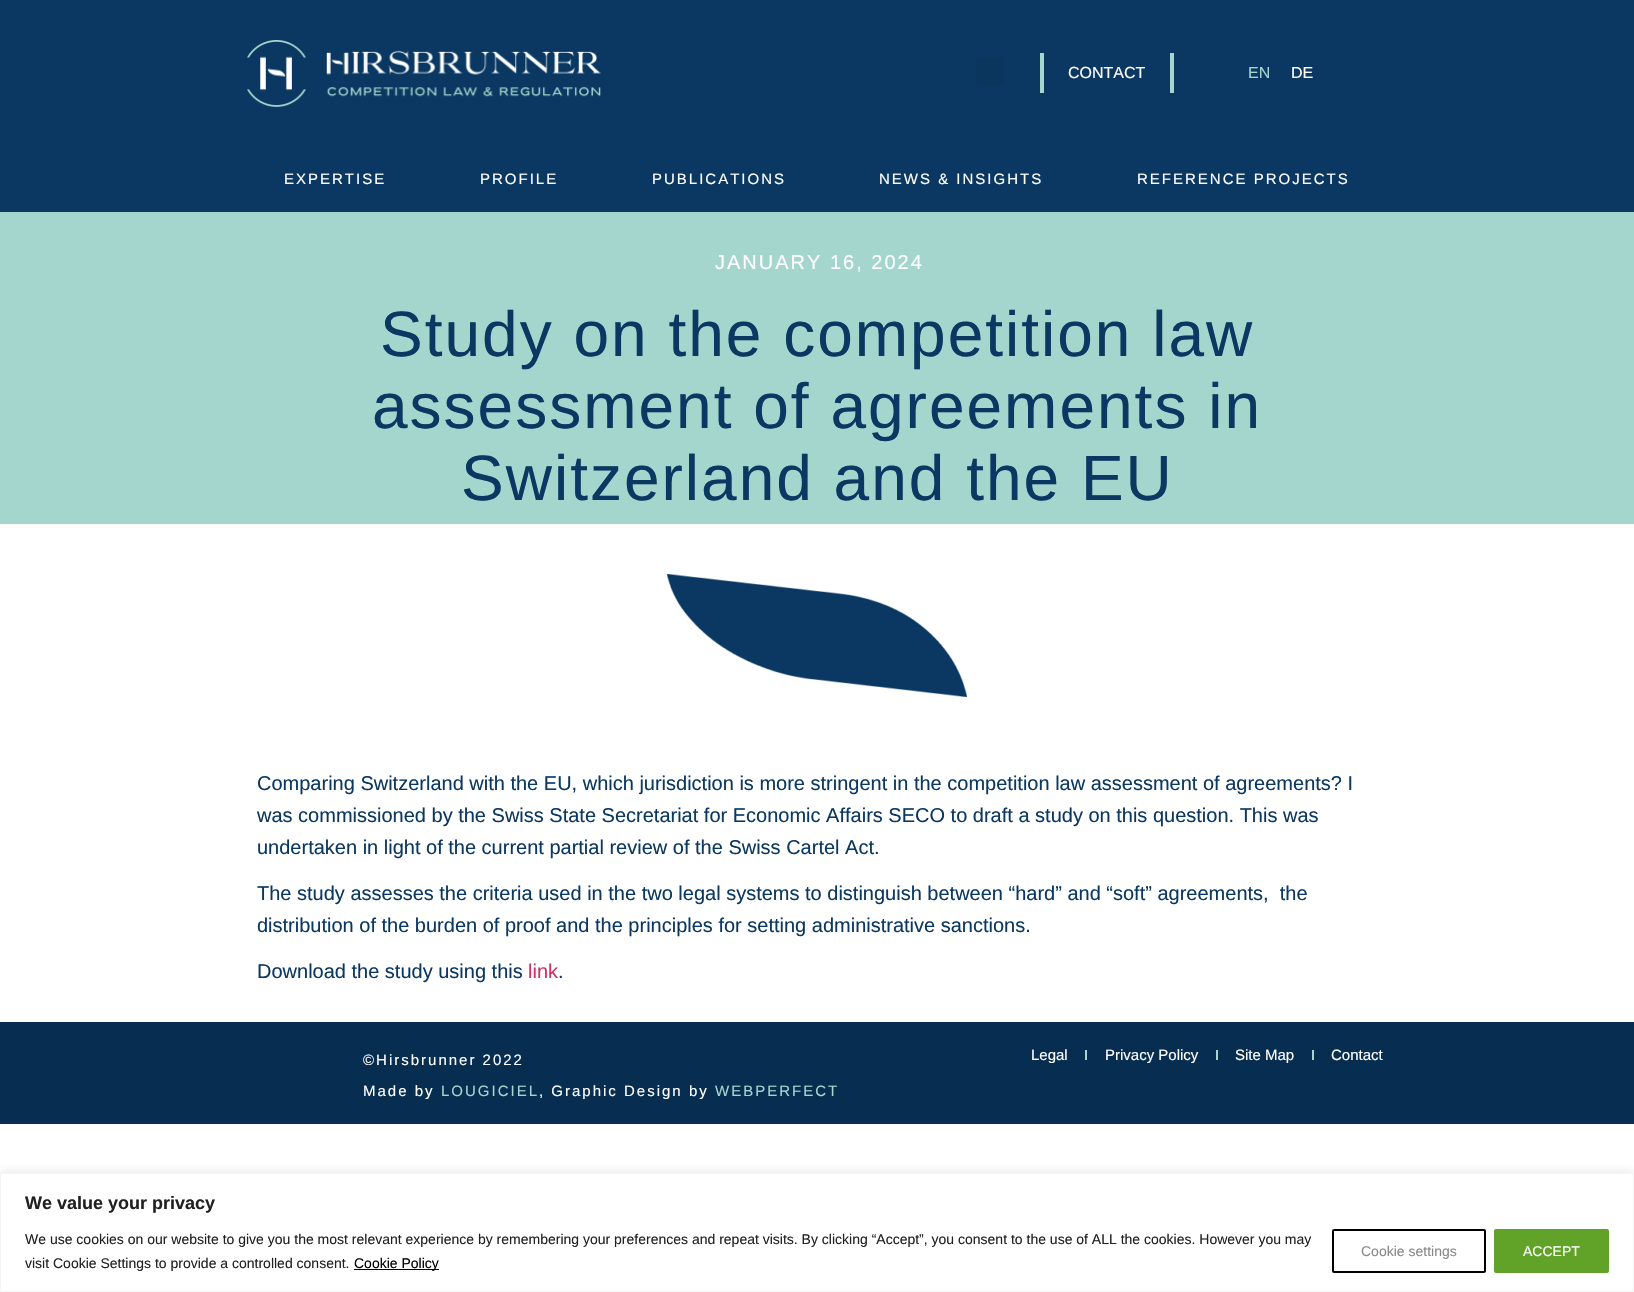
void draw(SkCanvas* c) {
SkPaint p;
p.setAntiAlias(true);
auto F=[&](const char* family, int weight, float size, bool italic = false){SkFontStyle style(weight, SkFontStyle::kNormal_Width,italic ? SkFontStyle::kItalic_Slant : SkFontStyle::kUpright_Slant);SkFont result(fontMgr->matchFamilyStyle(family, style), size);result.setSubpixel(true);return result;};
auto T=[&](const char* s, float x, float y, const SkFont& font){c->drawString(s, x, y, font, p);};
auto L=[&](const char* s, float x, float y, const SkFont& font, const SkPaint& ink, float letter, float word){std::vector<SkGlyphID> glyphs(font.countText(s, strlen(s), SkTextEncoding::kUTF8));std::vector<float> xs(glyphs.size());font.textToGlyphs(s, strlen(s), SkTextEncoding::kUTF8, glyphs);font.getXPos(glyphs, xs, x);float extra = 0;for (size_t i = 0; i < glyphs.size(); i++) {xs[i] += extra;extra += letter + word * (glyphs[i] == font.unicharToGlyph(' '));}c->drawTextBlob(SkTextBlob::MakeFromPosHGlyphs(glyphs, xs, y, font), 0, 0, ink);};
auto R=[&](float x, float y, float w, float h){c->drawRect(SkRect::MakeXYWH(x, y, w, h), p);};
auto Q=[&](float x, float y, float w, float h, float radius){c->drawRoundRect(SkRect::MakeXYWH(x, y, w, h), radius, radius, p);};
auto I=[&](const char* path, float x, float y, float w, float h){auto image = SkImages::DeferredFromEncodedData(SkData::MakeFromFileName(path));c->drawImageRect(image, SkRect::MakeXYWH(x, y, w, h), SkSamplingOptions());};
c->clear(0xffffffff);
p.setColor(0xff0a3862);
R(0,0,1634,212);
I("1.png",247,40,354,67);
p.setColor(0xff0a355d);
Q(976,57,28,28,3);
p.setColor(0xffa4d6cd);
R(1170,53,4,40);
R(1040,53,4,40);
auto f1 = F("Liberation Sans",400,16);
p.setColor(0xffffffff);
T("CONTACT",1068,78,f1);
p.setColor(0xffa4d6cd);
T("EN",1248,78,f1);
p.setColor(0xffffffff);
T("DE",1291,78,f1);
auto f2 = F("Liberation Sans",400,15);
L("EXPERTISE",284,184,f2,p,2,0);
L("PROFILE",480,184,f2,p,2,0);
L("PUBLICATIONS",652,184,f2,p,2,0);
L("NEWS & INSIGHTS",879,184,f2,p,2,0);
L("REFERENCE PROJECTS",1137,184,f2,p,2,0);
p.setColor(0xffa4d6cd);
R(0,212,1634,312);
auto f3 = F("Liberation Sans",400,20);
p.setColor(0xffffffff);
L("JANUARY 16, 2024",715,269,f3,p,2,0);
auto f4 = F("Liberation Sans",400,64);
p.setColor(0xff0a3862);
L("Study on the competition law",380,356,f4,p,2,0);
L("assessment of agreements in",372,428,f4,p,2,0);
L("Switzerland and the EU",461,500,f4,p,2,0);
I("2.png",667,574,300,123);
T("Comparing Switzerland with the EU, which jurisdiction is more stringent in the competition law assessment of agreements? I",257,790,f3);
T("was commissioned by the Swiss State Secretariat for Economic Affairs SECO to draft a study on this question. This was",257,822,f3);
T("undertaken in light of the current partial review of the Swiss Cartel Act.",257,854,f3);
T("The study assesses the criteria used in the two legal systems to distinguish between “hard” and “soft” agreements,  the",257,900,f3);
T("distribution of the burden of proof and the principles for setting administrative sanctions.",257,932,f3);
T("Download the study using this",257,978,f3);
p.setColor(0xffcc3366);
T("link",528,978,f3);
p.setColor(0xff0a3862);
T(".",558,978,f3);
p.setColor(0xff072d50);
R(0,1022,1634,102);
p.setColor(0xffffffff);
L("©Hirsbrunner 2022",363,1065,f2,p,2,0);
L("Made by",363,1096,f2,p,2,0);
p.setColor(0xffa4d6cd);
L("LOUGICIEL",441,1096,f2,p,2,0);
p.setColor(0xffffffff);
L(", Graphic Design by",539,1096,f2,p,2,0);
p.setColor(0xffa4d6cd);
L("WEBPERFECT",715,1096,f2,p,2,0);
p.setColor(0xffffffff);
T("Legal",1031,1060,f2);
p.setColor(0xffa4d6cd);
R(1085,1050,2,10);
p.setColor(0xffffffff);
T("Privacy Policy",1105,1060,f2);
p.setColor(0xffa4d6cd);
R(1216,1050,2,10);
p.setColor(0xffffffff);
T("Site Map",1235,1060,f2);
p.setColor(0xffa4d6cd);
R(1312,1050,2,10);
p.setColor(0xffffffff);
T("Contact",1331,1060,f2);
c->save();
c->clipRect(SkRect::MakeXYWH(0,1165,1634,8));
p.setColor(0x4dacabab);
p.setMaskFilter(SkMaskFilter::MakeBlur(kNormal_SkBlurStyle, 5));
c->drawRect(SkRect::MakeXYWH(0,1172,1634,119),p);
p.setMaskFilter(nullptr);
c->restore();
p.setStroke(true);
p.setStrokeWidth(1);
p.setColor(0xfff4f4f4);
c->drawRect(SkRect::MakeXYWH(.5,1173.5,1633,118),p);
auto f5 = F("Liberation Sans",700,18);
p.setStroke(false);
p.setColor(0xff212121);
T("We value your privacy",25,1209,f5);
auto f6 = F("Liberation Sans",400,14);
T("We use cookies on our website to give you the most relevant experience by remembering your preferences and repeat visits. By clicking “Accept”, you consent to the use of ALL the cookies. However you may",25,1244,f6);
T("visit Cookie Settings to provide a controlled consent.",25,1268,f6);
p.setColor(0xff000000);
R(354,1269,85,1);
T("Cookie Policy",354,1268,f6);
p.setStroke(true);
p.setStrokeWidth(2);
c->drawRoundRect(SkRect::MakeXYWH(1333,1230,152,42),1,1,p);
p.setStroke(false);
p.setColor(0xff898888);
T("Cookie settings",1361,1256,f6);
p.setColor(0xff61a229);
c->drawRoundRect(SkRect::MakeXYWH(1495,1230,113,42),1,1,p);
p.setStroke(true);
c->drawRoundRect(SkRect::MakeXYWH(1495,1230,113,42),1,1,p);
p.setStroke(false);
p.setColor(0xffffffff);
T("ACCEPT",1523,1256,f6);
}
